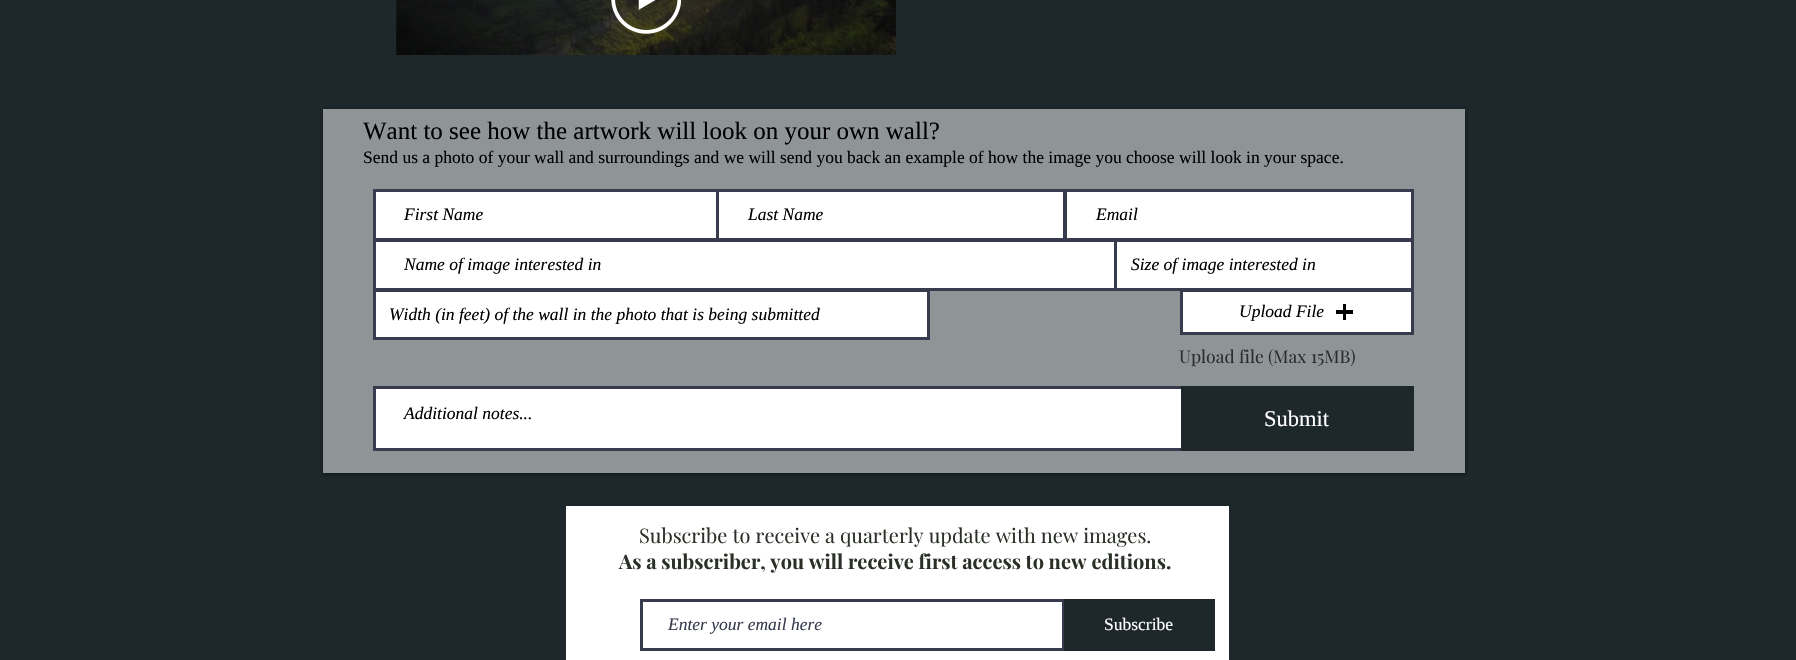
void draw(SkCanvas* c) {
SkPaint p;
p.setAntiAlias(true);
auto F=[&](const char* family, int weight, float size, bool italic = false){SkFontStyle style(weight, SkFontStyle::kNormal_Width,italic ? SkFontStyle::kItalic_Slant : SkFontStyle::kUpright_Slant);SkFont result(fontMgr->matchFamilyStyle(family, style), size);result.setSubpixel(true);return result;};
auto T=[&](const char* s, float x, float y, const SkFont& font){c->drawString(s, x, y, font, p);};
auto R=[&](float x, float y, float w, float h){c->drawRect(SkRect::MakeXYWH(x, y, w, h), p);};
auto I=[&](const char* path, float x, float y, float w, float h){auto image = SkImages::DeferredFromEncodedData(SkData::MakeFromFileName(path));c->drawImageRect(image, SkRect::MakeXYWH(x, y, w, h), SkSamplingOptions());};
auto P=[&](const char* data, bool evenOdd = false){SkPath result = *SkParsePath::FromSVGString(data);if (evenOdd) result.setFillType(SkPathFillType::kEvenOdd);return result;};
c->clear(0xff1e282c);
I("1.png",396,0,500,55);
I("2.png",396,0,1,55);
I("3.png",611,0,70,34);
c->save();
c->clipPath(P("M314 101h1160v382h-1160zm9 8h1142v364h-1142z",true),true);
p.setColor(0x99000000);
p.setMaskFilter(SkMaskFilter::MakeBlur(kNormal_SkBlurStyle, 2.5));
c->drawRect(SkRect::MakeXYWH(323,110,1142,364),p);
p.setMaskFilter(nullptr);
c->restore();
p.setColor(0x80ffffff);
R(323,109,1142,364);
auto f1 = F("Liberation Serif",400,25);
p.setColor(0xff000000);
T("Want to see how the artwork will look on your own wall?",363,139,f1);
auto f2 = F("Liberation Serif",400,17.5);
T("Send us a photo of your wall and surroundings and we will send you back an example of how the image you choose will look in your space.",363,163,f2);
p.setColor(0xffffffff);
R(376,192,340,46);
p.setStroke(true);
p.setStrokeWidth(3);
p.setColor(0xff373b4d);
c->drawRect(SkRect::MakeXYWH(374.5,190.5,347,49),p);
auto f3 = F("Liberation Serif",400,17.5,true);
p.setStroke(false);
p.setColor(0xff000000);
T("First Name",404,220,f3);
p.setColor(0xffffffff);
c->drawRect(SkRect::MakeXYWH(717.5,190.5,347,49),p);
p.setStroke(true);
p.setColor(0xff373b4d);
c->drawRect(SkRect::MakeXYWH(717.5,190.5,347,49),p);
p.setStroke(false);
p.setColor(0xff000000);
T("Last Name",748,220,f3);
p.setColor(0xffffffff);
c->drawRect(SkRect::MakeXYWH(1065.5,190.5,347,49),p);
p.setStroke(true);
p.setColor(0xff373b4d);
c->drawRect(SkRect::MakeXYWH(1065.5,190.5,347,49),p);
p.setStroke(false);
p.setColor(0xff000000);
T("Email",1096,220,f3);
p.setColor(0xffffffff);
R(376,242,738,46);
p.setStroke(true);
p.setColor(0xff373b4d);
c->drawRect(SkRect::MakeXYWH(374.5,240.5,745,49),p);
p.setStroke(false);
p.setColor(0xff000000);
T("Name of image interested in",404,270,f3);
p.setColor(0xffffffff);
c->drawRect(SkRect::MakeXYWH(1115.5,240.5,297,49),p);
p.setStroke(true);
p.setColor(0xff373b4d);
c->drawRect(SkRect::MakeXYWH(1115.5,240.5,297,49),p);
p.setStroke(false);
p.setColor(0xff000000);
T("Size of image interested in",1131,270,f3);
p.setColor(0xffffffff);
c->drawRect(SkRect::MakeXYWH(374.5,290.5,554,48),p);
p.setStroke(true);
p.setColor(0xff373b4d);
c->drawRect(SkRect::MakeXYWH(374.5,290.5,554,48),p);
p.setStroke(false);
p.setColor(0xff000000);
T("Width (in feet) of the wall in the photo that is being submitted",389,320,f3);
p.setColor(0xffffffff);
c->drawRect(SkRect::MakeXYWH(1181.5,290.5,231,43),p);
p.setStroke(true);
p.setColor(0xff373b4d);
c->drawRect(SkRect::MakeXYWH(1181.5,290.5,231,43),p);
p.setStroke(false);
p.setColor(0xff000000);
T("Upload File",1239,317,f3);
R(1343,304,3,16);
R(1336,310,17,4);
auto f4 = F("Playfair Display",400,17.5);
p.setColor(0xff2b2c2d);
T("Upload file (Max 15MB)",1179,363,f4);
p.setColor(0xffffffff);
R(376,389,805,59);
p.setStroke(true);
p.setColor(0xff373b4d);
c->drawRect(SkRect::MakeXYWH(374.5,387.5,809,62),p);
p.setStroke(false);
p.setColor(0xff000000);
T("Additional notes...",404,419,f3);
p.setColor(0xff1e282c);
R(1181,386,233,65);
auto f5 = F("Liberation Serif",400,22.5);
p.setColor(0xffffffff);
T("Submit",1264,426,f5);
R(566,506,663,154);
auto f6 = F("Playfair Display",400,20);
p.setColor(0xff2a3027);
T("Subscribe to receive a quarterly update with new images.",639,543,f6);
auto f7 = F("Playfair Display",700,20);
T("As a subscriber, you will receive first access to new editions.",619,569,f7);
p.setStroke(true);
p.setColor(0xff373b4d);
c->drawRect(SkRect::MakeXYWH(641.5,600.5,422,49),p);
p.setStroke(false);
T("Enter your email here",668,630,f3);
p.setColor(0xff1e282c);
R(1064,599,151,52);
p.setColor(0xffffffff);
T("Subscribe",1104,630,f2);
}
